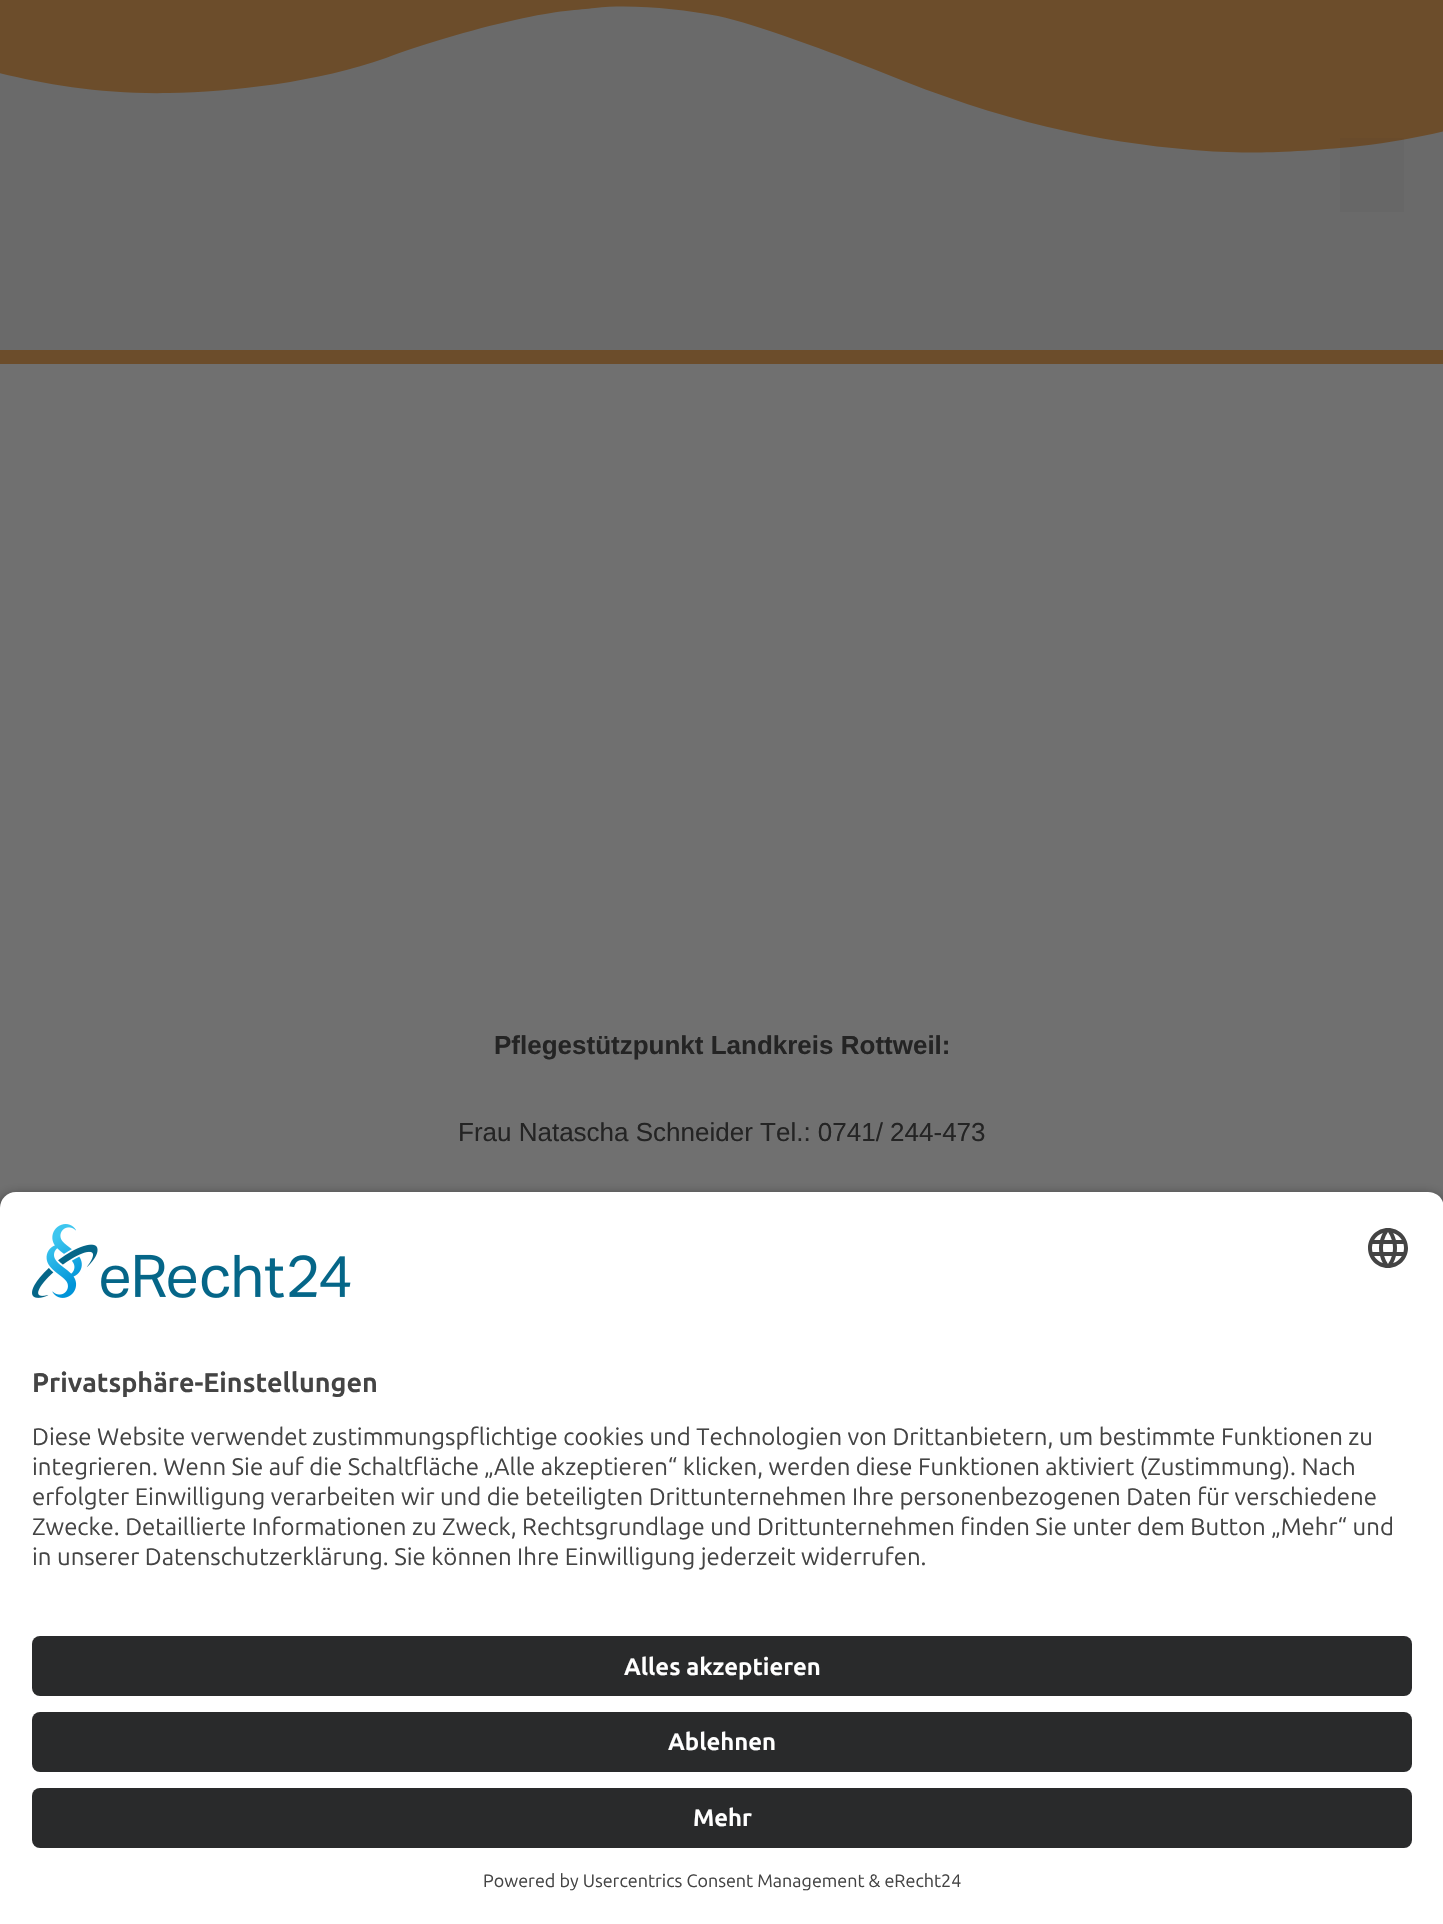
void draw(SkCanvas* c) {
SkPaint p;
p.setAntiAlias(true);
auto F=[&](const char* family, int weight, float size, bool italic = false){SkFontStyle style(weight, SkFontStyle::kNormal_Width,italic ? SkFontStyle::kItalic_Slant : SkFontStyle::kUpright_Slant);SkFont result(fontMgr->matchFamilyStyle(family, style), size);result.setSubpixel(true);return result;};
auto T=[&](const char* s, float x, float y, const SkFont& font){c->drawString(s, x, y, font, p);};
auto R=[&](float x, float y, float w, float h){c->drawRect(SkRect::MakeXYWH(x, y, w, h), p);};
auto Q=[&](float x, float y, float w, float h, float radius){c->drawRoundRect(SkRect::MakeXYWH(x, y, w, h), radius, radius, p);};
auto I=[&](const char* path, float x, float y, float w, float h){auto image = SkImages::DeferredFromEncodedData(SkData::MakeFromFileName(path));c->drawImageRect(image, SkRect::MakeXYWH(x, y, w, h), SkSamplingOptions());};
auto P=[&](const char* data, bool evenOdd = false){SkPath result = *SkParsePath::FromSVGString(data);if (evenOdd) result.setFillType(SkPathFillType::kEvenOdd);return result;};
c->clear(0xff707070);
p.setColor(0xff6a6a6a);
R(0,6,1443,344);
p.setColor(0xff6c4d2b);
R(0,350,1443,14);
c->drawPath(P("M595 8c37-4 84 1 123 8c38 8 115 37 163 56c122 50 216 70 312 78c38 3 78 5 167-4c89-10 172-40 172-40v-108h-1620v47c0 0 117 51 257 48c63-1 150-11 217-35c34-13 84-28 129-38c44-10 64-10 80-12z"),p);
p.setColor(0x0d242424);
R(1340,138,64,74);
auto f1 = F("Liberation Sans",700,26);
p.setColor(0xff242424);
T("Pflegestützpunkt Landkreis Rottweil:",494,1054,f1);
auto f2 = F("Liberation Sans",400,26);
T("Frau Natascha Schneider Tel.: 0741/ 244-473",458,1141,f2);
p.setColor(0xcc000000);
p.setMaskFilter(SkMaskFilter::MakeBlur(kNormal_SkBlurStyle, 7));
c->drawRoundRect(SkRect::MakeXYWH(0,1198,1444,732),16,16,p);
p.setMaskFilter(nullptr);
p.setColor(0xffffffff);
c->drawPath(P("M16 1192h1412c9 0 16 7 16 16v404h-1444v-404c0-9 7-16 16-16z"),p);
I("1.png",32,1224,319,74);
I("2.png",1368,1228,40,40);
auto f3 = F("Ubuntu",700,27);
p.setColor(0xff444444);
T("Privatsphäre-Einstellungen",32,1392,f3);
auto f4 = F("Ubuntu",400,23.95);
T("Diese Website verwendet zustimmungspflichtige cookies und Technologien von Drittanbietern, um bestimmte Funktionen zu",32,1445,f4);
T("integrieren. Wenn Sie auf die Schaltfläche „Alle akzeptieren“ klicken, werden diese Funktionen aktiviert (Zustimmung). Nach",32,1475,f4);
T("erfolgter Einwilligung verarbeiten wir und die beteiligten Drittunternehmen Ihre personenbezogenen Daten für verschiedene",32,1505,f4);
T("Zwecke. Detaillierte Informationen zu Zweck, Rechtsgrundlage und Drittunternehmen finden Sie unter dem Button „Mehr“ und",32,1535,f4);
T("in unserer Datenschutzerklärung. Sie können Ihre Einwilligung jederzeit widerrufen.",32,1565,f4);
p.setColor(0xffffffff);
R(0,1612,1443,312);
p.setColor(0xff292a2b);
Q(32,1636,1380,60,8);
auto f5 = F("Ubuntu",700,23.95);
p.setColor(0xffffffff);
T("Alles akzeptieren",624,1675,f5);
p.setColor(0xff292a2b);
Q(32,1712,1380,60,8);
p.setColor(0xffffffff);
T("Ablehnen",668,1750,f5);
p.setColor(0xff292a2b);
Q(32,1788,1380,60,8);
p.setColor(0xffffffff);
T("Mehr",693,1826,f5);
auto f6 = F("Ubuntu",400,17.95);
p.setColor(0xff444444);
T("Powered by Usercentrics Consent Management & eRecht24",483,1887,f6);
}
